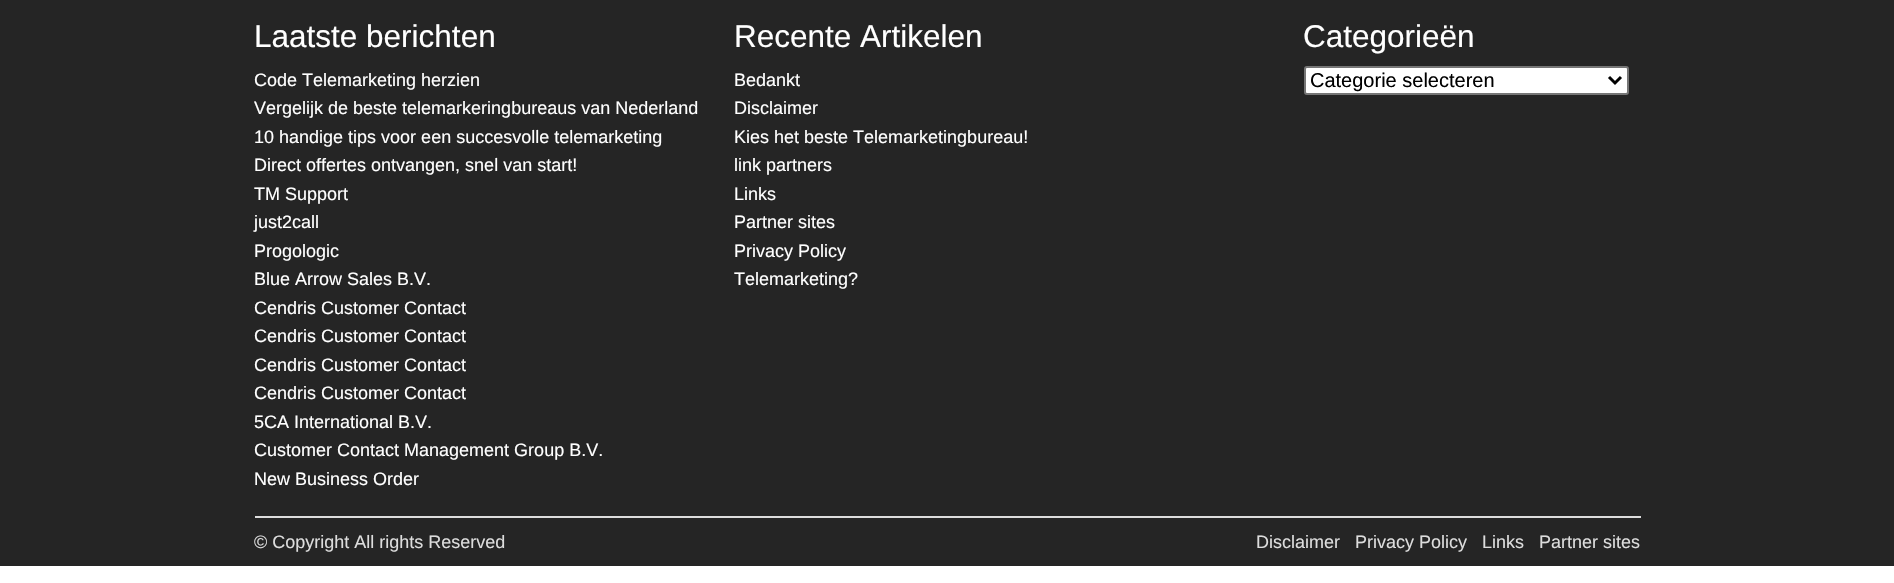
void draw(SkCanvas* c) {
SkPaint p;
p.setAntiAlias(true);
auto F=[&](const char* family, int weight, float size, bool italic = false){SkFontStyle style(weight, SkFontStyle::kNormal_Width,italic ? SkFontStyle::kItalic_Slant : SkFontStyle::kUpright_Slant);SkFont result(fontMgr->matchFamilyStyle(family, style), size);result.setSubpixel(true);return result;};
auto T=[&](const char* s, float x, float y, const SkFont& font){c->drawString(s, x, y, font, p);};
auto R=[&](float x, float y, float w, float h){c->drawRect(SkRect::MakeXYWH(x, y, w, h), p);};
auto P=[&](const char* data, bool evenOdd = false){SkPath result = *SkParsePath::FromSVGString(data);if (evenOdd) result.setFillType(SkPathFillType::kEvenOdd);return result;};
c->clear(0xffffffff);
p.setColor(0xff252525);
R(0,0,1894,566);
auto f1 = F("Liberation Sans",400,31.5);
p.setColor(0xffffffff);
T("Laatste berichten",254,47,f1);
auto f2 = F("Liberation Sans",400,18);
T("Code Telemarketing herzien",254,86,f2);
T("Vergelijk de beste telemarkeringbureaus van Nederland",254,114,f2);
T("10 handige tips voor een succesvolle telemarketing",254,143,f2);
T("Direct offertes ontvangen, snel van start!",254,171,f2);
T("TM Support",254,200,f2);
T("just2call",254,228,f2);
T("Progologic",254,257,f2);
T("Blue Arrow Sales B.V.",254,285,f2);
T("Cendris Customer Contact",254,314,f2);
T("Cendris Customer Contact",254,342,f2);
T("Cendris Customer Contact",254,371,f2);
T("Cendris Customer Contact",254,399,f2);
T("5CA International B.V.",254,428,f2);
T("Customer Contact Management Group B.V.",254,456,f2);
T("New Business Order",254,485,f2);
T("Recente Artikelen",734,47,f1);
T("Bedankt",734,86,f2);
T("Disclaimer",734,114,f2);
T("Kies het beste Telemarketingbureau!",734,143,f2);
T("link partners",734,171,f2);
T("Links",734,200,f2);
T("Partner sites",734,228,f2);
T("Privacy Policy",734,257,f2);
T("Telemarketing?",734,285,f2);
T("Categorieën",1303,47,f1);
c->drawRoundRect(SkRect::MakeXYWH(1305,67,323,27),2,2,p);
p.setStroke(true);
p.setStrokeWidth(2);
p.setColor(0xff767676);
c->drawRoundRect(SkRect::MakeXYWH(1305,67,323,27),2,2,p);
p.setStrokeWidth(3);
p.setColor(0xff000000);
c->drawPath(P("M1609 77l6 6l6-6"),p);
auto f3 = F("Liberation Sans",400,20);
p.setStroke(false);
T("Categorie selecteren",1310,87,f3);
p.setColor(0xffdddddd);
R(255,516,1386,2);
T("© Copyright All rights Reserved",254,548,f2);
T("Disclaimer",1256,548,f2);
T("Privacy Policy",1355,548,f2);
T("Links",1482,548,f2);
T("Partner sites",1539,548,f2);
}
